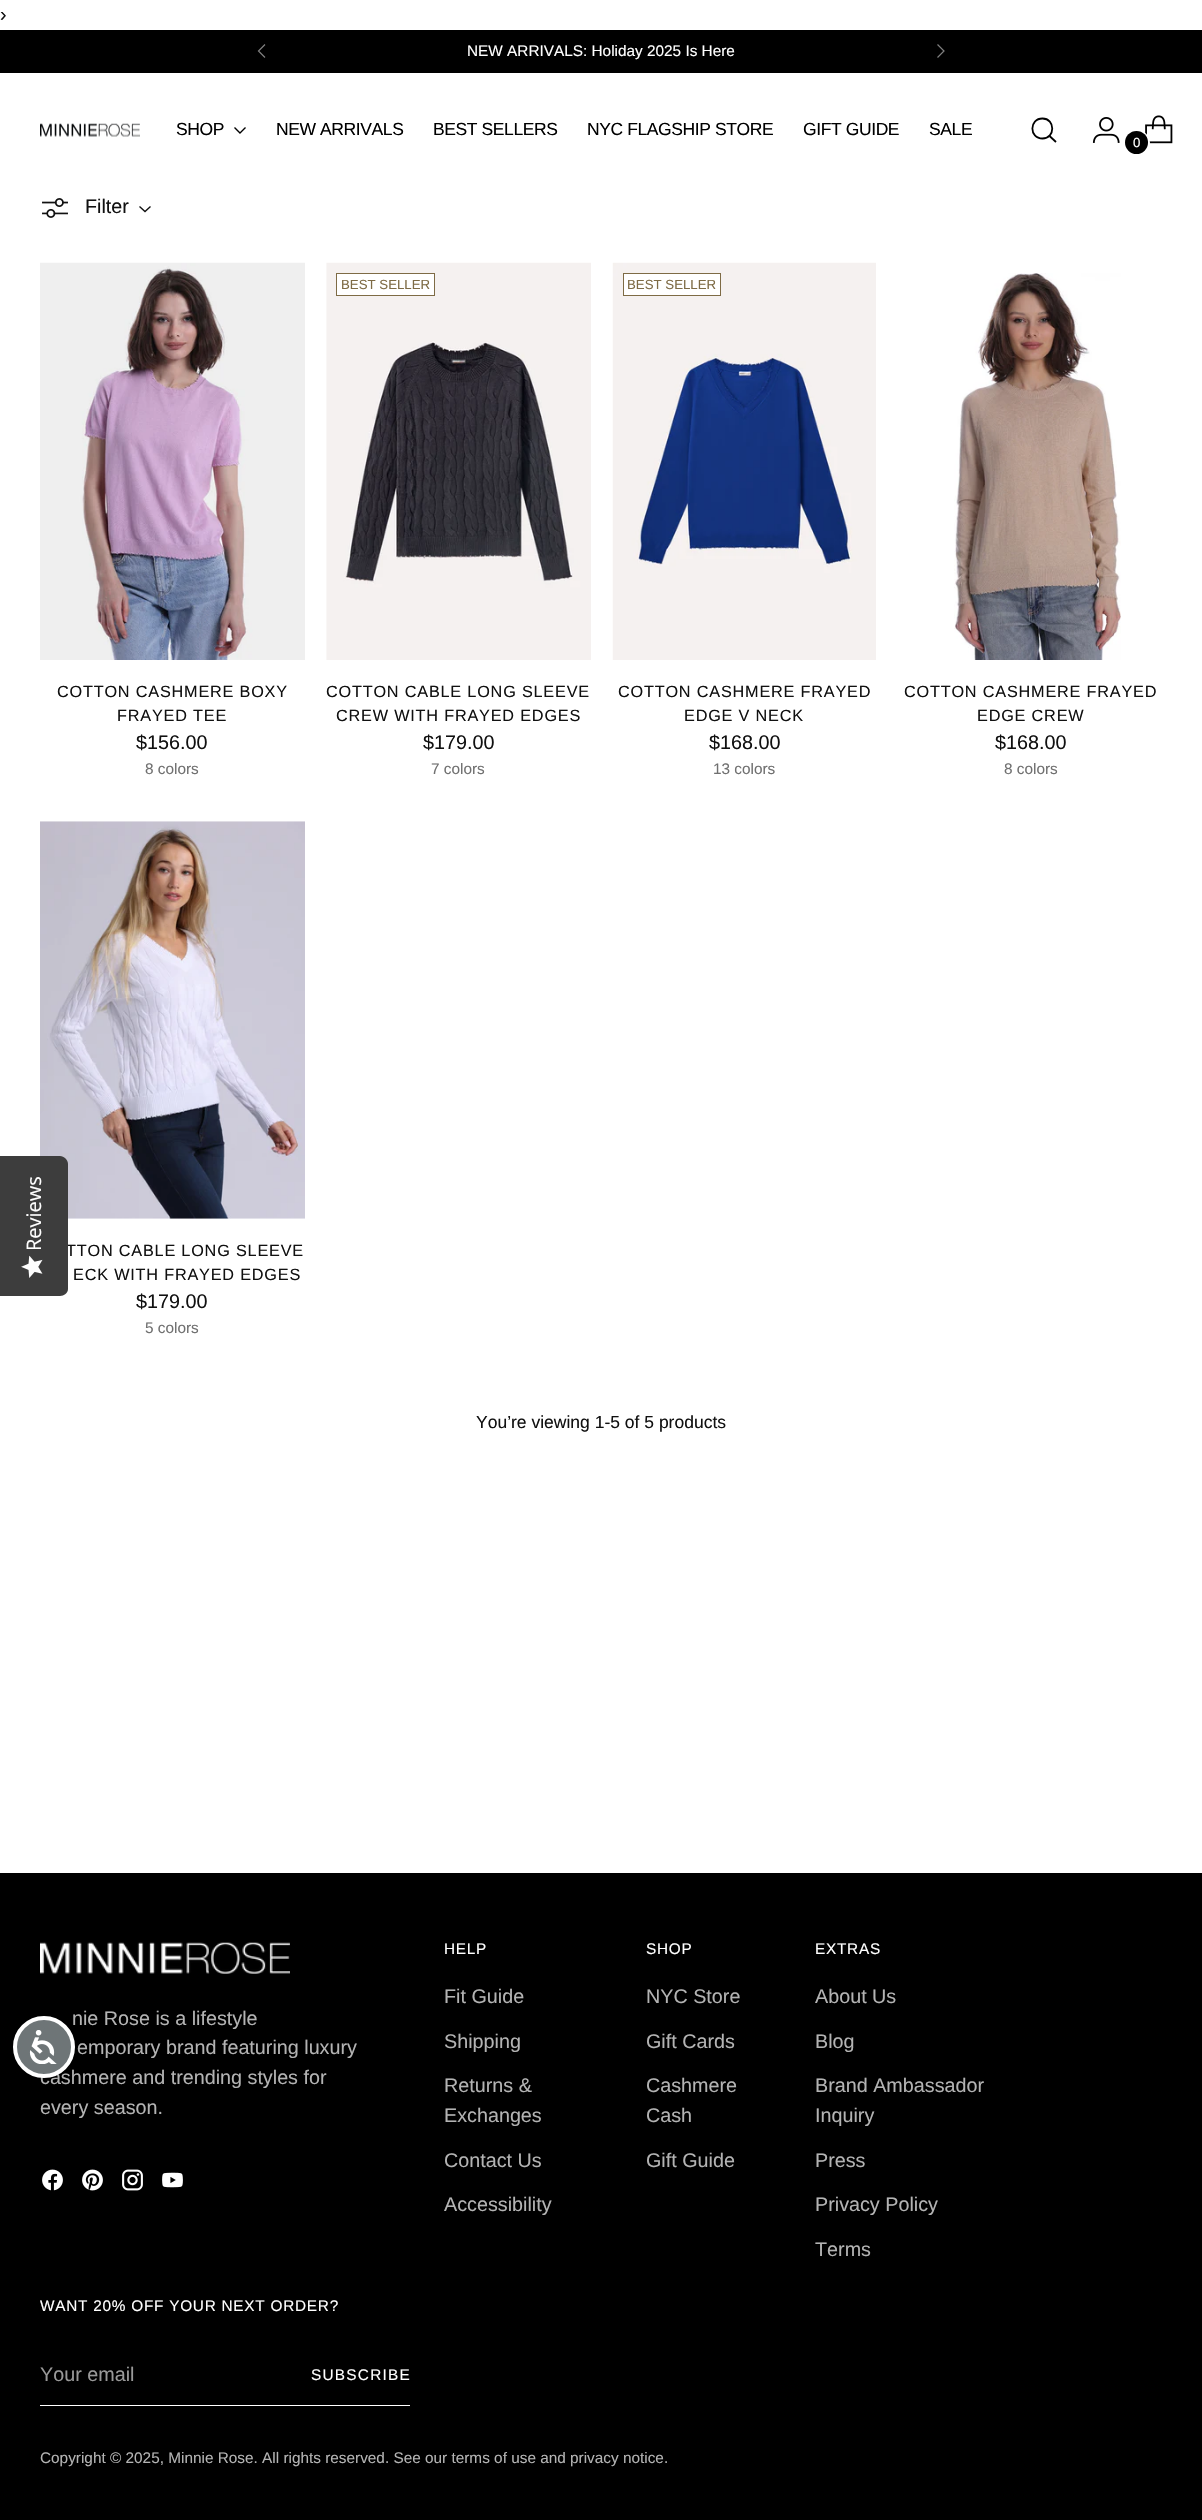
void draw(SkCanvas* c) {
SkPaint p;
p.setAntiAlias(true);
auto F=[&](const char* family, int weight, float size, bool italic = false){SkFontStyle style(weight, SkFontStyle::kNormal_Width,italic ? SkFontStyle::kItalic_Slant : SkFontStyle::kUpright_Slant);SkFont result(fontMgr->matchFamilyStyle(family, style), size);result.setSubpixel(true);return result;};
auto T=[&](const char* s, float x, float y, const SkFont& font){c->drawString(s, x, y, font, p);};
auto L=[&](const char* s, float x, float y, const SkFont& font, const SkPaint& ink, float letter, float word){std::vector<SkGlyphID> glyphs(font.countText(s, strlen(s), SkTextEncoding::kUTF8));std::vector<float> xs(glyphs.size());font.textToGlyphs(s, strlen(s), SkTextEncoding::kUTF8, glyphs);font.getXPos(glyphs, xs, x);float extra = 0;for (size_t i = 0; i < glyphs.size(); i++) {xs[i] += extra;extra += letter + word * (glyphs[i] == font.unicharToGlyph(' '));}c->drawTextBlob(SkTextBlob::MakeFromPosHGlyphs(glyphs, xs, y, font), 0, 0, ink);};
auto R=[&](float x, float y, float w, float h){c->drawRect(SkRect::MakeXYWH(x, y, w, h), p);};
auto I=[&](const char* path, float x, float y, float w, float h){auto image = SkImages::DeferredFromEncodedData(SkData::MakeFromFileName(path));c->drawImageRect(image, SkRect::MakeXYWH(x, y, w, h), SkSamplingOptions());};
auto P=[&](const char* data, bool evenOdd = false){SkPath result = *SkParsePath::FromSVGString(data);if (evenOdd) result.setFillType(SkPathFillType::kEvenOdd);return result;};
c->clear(0xffffffff);
auto f1 = F("Liberation Sans",400,19.75);
p.setColor(0xff111111);
T("›",0,21,f1);
I("10.png",40,821,265,398);
auto f2 = F("Liberation Sans",400,16.25);
L("TTON CABLE LONG SLEEVE",66,1256,f2,p,.8,0);
p.setColor(0xff3d3d3d);
c->drawPath(P("M0 1296v-140h60c4 0 8 4 8 8v125c0 4-4 7-8 7z"),p);
auto f3 = F("Open Sans",400,20);
p.setColor(0xffffffff);
c->save();
c->rotate(-90,41,1251);
T("Reviews",41,1251,f3);
c->restore();
I("1.png",21,1255,22,23);
p.setColor(0xff000000);
R(0,30,1202,43);
p.setStroke(true);
p.setStrokeWidth(1.2);
p.setColor(0xff808080);
c->drawPath(P("M265 44.5l-6.5 6.5l6.5 6.5"),p);
c->drawPath(P("M937.5 57.5l6.5-6.5l-6.5-6.5"),p);
auto f4 = F("Liberation Sans",400,15.35);
p.setStroke(false);
p.setColor(0xffffffff);
T("NEW ARRIVALS: Holiday 2025 Is Here",467,56,f4);
I("2.png",40,123,100,14);
auto f5 = F("Liberation Sans",400,17.5);
p.setColor(0xff000000);
L("SHOP",176,135,f5,p,-.4,0);
p.setStroke(true);
p.setStrokeWidth(1.4);
c->drawPath(P("M234.5 127.5l5.5 5.5l5.5-5.5"),p);
p.setStroke(false);
L("NEW ARRIVALS",276,135,f5,p,-.4,0);
L("BEST SELLERS",433,135,f5,p,-.4,0);
L("NYC FLAGSHIP STORE",587,135,f5,p,-.4,0);
L("GIFT GUIDE",803,135,f5,p,-.4,0);
L("SALE",929,135,f5,p,-.4,0);
p.setStroke(true);
p.setStrokeWidth(1.8);
p.setStrokeCap(SkPaint::kRound_Cap);
c->drawPath(P("M1042.5 138.5c13 0 13-20 0-20c-13.5 0-13.5 20 0 20z"),p);
p.setStrokeCap(SkPaint::kButt_Cap);
c->drawPath(P("M1049.5 136l6.5 6"),p);
I("3.png",1092,117,28,26);
I("4.png",1145,115,28,29);
p.setStrokeWidth(2);
p.setColor(0xffffffff);
c->drawCircle(1137,143,12,p);
p.setStroke(false);
p.setColor(0xff000000);
c->drawCircle(1136.5,142.5,11.5,p);
auto f6 = F("Liberation Sans",400,13.25);
p.setColor(0xffffffff);
T("0",1133,147,f6);
I("5.png",42,198,26,20);
p.setColor(0xff111111);
T("Filter",85,213,f1);
p.setStroke(true);
p.setStrokeWidth(1.4);
c->drawPath(P("M139.5 206.5l5.5 5l5.5-5"),p);
I("6.png",40,262,265,398);
p.setStroke(false);
L("COTTON CASHMERE BOXY",57,697,f2,p,.8,0);
L("FRAYED TEE",117,721,f2,p,.8,0);
T("$156.00",136,749,f1);
p.setColor(0xff707070);
T("8 colors",145,774,f4);
I("7.png",326,262,265,398);
p.setColor(0xffffffff);
c->drawRect(SkRect::MakeXYWH(336.5,273.5,98,22),p);
p.setStroke(true);
p.setStrokeWidth(1);
p.setColor(0xff7e6b45);
c->drawRect(SkRect::MakeXYWH(336.5,273.5,98,22),p);
p.setStroke(false);
T("BEST SELLER",341,289,f6);
p.setColor(0xff111111);
L("COTTON CABLE LONG SLEEVE",326,697,f2,p,.8,0);
L("CREW WITH FRAYED EDGES",336,721,f2,p,.8,0);
T("$179.00",423,749,f1);
p.setColor(0xff707070);
T("7 colors",431,774,f4);
I("8.png",612,262,264,398);
p.setColor(0xffffffff);
c->drawRect(SkRect::MakeXYWH(623.5,273.5,97,22),p);
p.setStroke(true);
p.setColor(0xff7e6b45);
c->drawRect(SkRect::MakeXYWH(623.5,273.5,97,22),p);
p.setStroke(false);
T("BEST SELLER",627,289,f6);
p.setColor(0xff111111);
L("COTTON CASHMERE FRAYED",618,697,f2,p,.8,0);
L("EDGE V NECK",684,721,f2,p,.8,0);
T("$168.00",709,749,f1);
p.setColor(0xff707070);
T("13 colors",713,774,f4);
I("9.png",954,273,167,387);
p.setColor(0xff111111);
L("COTTON CASHMERE FRAYED",904,697,f2,p,.8,0);
L("EDGE CREW",977,721,f2,p,.8,0);
T("$168.00",995,749,f1);
p.setColor(0xff707070);
T("8 colors",1004,774,f4);
p.setColor(0xff111111);
L("ECK WITH FRAYED EDGES",73,1280,f2,p,.8,0);
T("$179.00",136,1308,f1);
p.setColor(0xff707070);
T("5 colors",145,1333,f4);
p.setColor(0xff111111);
T("You’re viewing 1-5 of 5 products",476,1428,f5);
p.setColor(0xff000000);
R(0,1873,1202,647);
I("11.png",40,1942,250,32);
p.setColor(0xffb3b3b3);
T("nie Rose is a lifestyle",72,2025,f1);
T("emporary brand featuring luxury",77,2054,f1);
T("cashmere and trending styles for",40,2084,f1);
T("every season.",40,2114,f1);
I("12.png",42,2169,21,22);
I("13.png",82,2169,21,22);
I("14.png",122,2169,21,22);
I("15.png",162,2172,21,16);
p.setColor(0xffffffff);
L("HELP",444,1954,f4,p,.75,0);
p.setColor(0xffb3b3b3);
T("Fit Guide",444,2003,f1);
T("Shipping",444,2048,f1);
T("Returns &",444,2092,f1);
T("Exchanges",444,2122,f1);
T("Contact Us",444,2167,f1);
T("Accessibility",444,2211,f1);
p.setColor(0xffffffff);
L("SHOP",646,1954,f4,p,.75,0);
p.setColor(0xffb3b3b3);
T("NYC Store",646,2003,f1);
T("Gift Cards",646,2048,f1);
T("Cashmere",646,2092,f1);
T("Cash",646,2122,f1);
T("Gift Guide",646,2167,f1);
p.setColor(0xffffffff);
L("EXTRAS",815,1954,f4,p,.75,0);
p.setColor(0xffb3b3b3);
T("About Us",815,2003,f1);
T("Blog",815,2048,f1);
T("Brand Ambassador",815,2092,f1);
T("Inquiry",815,2122,f1);
T("Press",815,2167,f1);
T("Privacy Policy",815,2211,f1);
T("Terms",815,2256,f1);
p.setColor(0xffffffff);
L("WANT 20% OFF YOUR NEXT ORDER?",40,2311,f4,p,.75,0);
R(40,2405,370,1);
p.setColor(0xff999999);
T("Your email",40,2381,f1);
p.setColor(0xffffffff);
L("SUBSCRIBE",311,2380,f4,p,1.25,0);
p.setColor(0xffb3b3b3);
T("Copyright © 2025, Minnie Rose. All rights reserved. See our terms of use and privacy notice.",40,2463,f4);
p.setColor(0xff6e7577);
c->drawCircle(44,2047,29,p);
p.setStroke(true);
p.setStrokeWidth(4);
p.setColor(0xffffffff);
c->drawCircle(44,2047,29,p);
I("16.png",29,2030,28,34);
}
